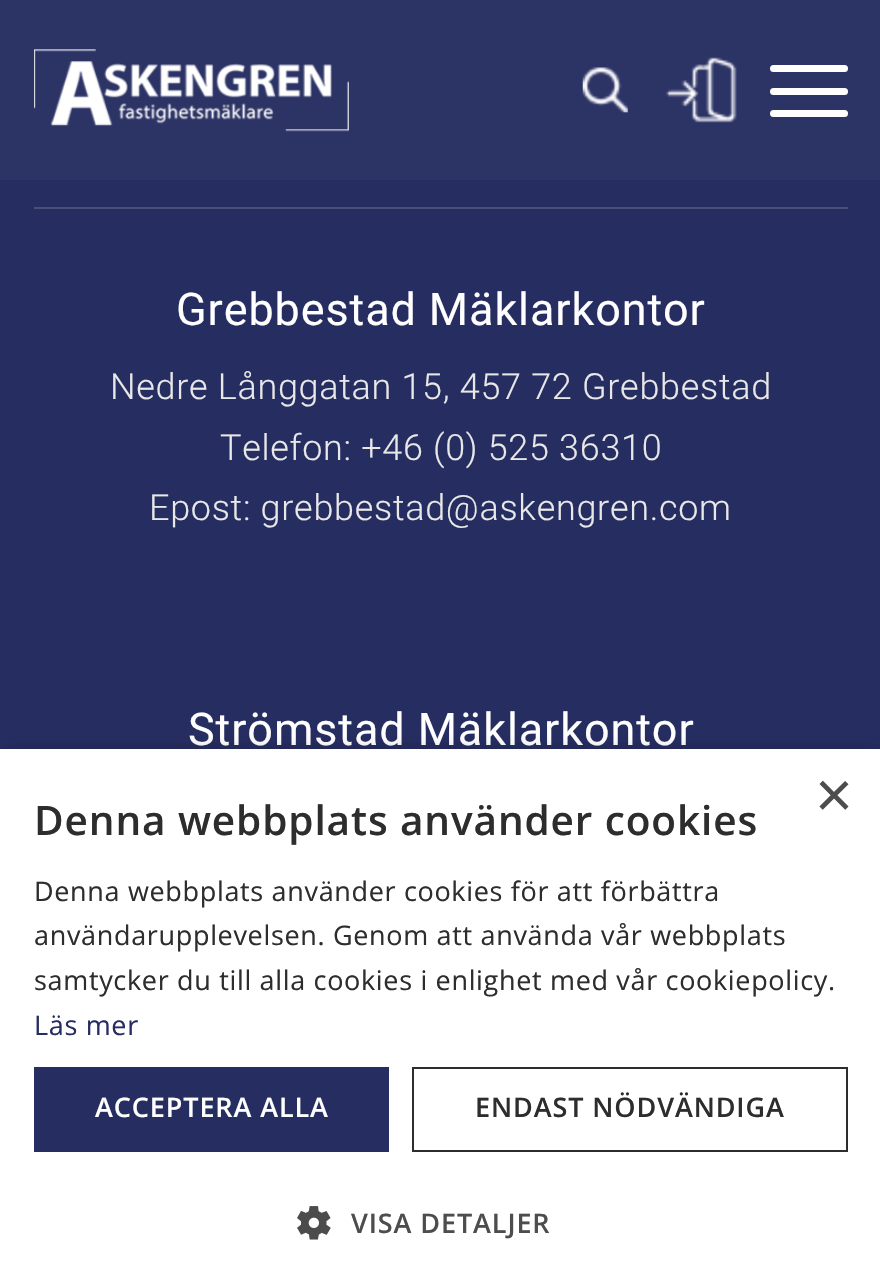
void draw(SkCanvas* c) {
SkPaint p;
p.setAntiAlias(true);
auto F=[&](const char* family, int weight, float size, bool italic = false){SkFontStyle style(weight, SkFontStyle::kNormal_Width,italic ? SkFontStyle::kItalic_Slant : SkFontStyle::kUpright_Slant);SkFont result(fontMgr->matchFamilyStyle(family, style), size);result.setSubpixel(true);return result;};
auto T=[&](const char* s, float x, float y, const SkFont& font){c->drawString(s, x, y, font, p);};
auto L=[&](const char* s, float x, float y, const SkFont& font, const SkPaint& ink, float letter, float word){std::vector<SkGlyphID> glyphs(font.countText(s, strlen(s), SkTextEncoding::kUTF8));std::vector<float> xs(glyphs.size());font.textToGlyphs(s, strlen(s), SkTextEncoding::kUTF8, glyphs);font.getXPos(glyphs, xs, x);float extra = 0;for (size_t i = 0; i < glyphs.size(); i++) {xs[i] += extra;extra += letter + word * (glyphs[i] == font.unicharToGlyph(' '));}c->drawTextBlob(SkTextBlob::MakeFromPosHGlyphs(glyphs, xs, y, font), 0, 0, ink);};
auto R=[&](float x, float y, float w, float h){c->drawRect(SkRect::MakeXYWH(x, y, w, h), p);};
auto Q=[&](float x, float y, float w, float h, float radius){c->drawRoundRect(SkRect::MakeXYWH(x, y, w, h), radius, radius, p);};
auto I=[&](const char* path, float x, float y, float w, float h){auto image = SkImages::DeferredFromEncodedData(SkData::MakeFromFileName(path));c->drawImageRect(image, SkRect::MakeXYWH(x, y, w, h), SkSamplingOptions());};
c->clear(0xff262d61);
p.setColor(0xff2c3365);
R(0,0,880,180);
I("1.png",34,49,315,83);
I("2.png",582,67,46,46);
I("3.png",665,57,72,66);
p.setColor(0xffffffff);
Q(770,88,78,7,3.5);
Q(770,65,78,7,3.5);
Q(770,110,78,7,3.5);
p.setColor(0xff484e74);
R(34,207,814,2);
auto f1 = F("Roboto",400,45);
p.setColor(0xffffffff);
L("Grebbestad Mäklarkontor",176,325,f1,p,.9,0);
auto f2 = F("Roboto",300,36);
p.setColor(0xffe8e8e8);
L("Nedre Långgatan 15, 457 72 Grebbestad",110,399,f2,p,.7,0);
L("Telefon: +46 (0) 525 36310",220,460,f2,p,.7,0);
L("Epost: grebbestad@askengren.com",149,520,f2,p,.7,0);
p.setColor(0xffffffff);
L("Strömstad Mäklarkontor",188,745,f1,p,.9,0);
p.setColor(0x59000000);
p.setMaskFilter(SkMaskFilter::MakeBlur(kNormal_SkBlurStyle, 9));
c->drawRect(SkRect::MakeXYWH(2,754,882,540),p);
p.setMaskFilter(nullptr);
p.setColor(0xffffffff);
R(0,749,880,539);
auto f3 = F("Liberation Sans",400,65);
p.setColor(0xff4d4d4d);
T("×",815,817,f3);
auto f4 = F("Open Sans",600,40.5);
p.setColor(0xff2d2d2d);
L("Denna webbplats använder cookies",34,835,f4,p,.9,0);
auto f5 = F("Open Sans",400,27);
L("Denna webbplats använder cookies för att förbättra",34,901,f5,p,.67,0);
L("användarupplevelsen. Genom att använda vår webbplats",34,945,f5,p,.67,0);
L("samtycker du till alla cookies i enlighet med vår cookiepolicy.",34,990,f5,p,.67,0);
p.setColor(0xff262d61);
L("Läs mer",34,1035,f5,p,.67,0);
R(34,1067,355,85);
auto f6 = F("Open Sans",600,27);
p.setColor(0xffffffff);
L("ACCEPTERA ALLA",95,1117,f6,p,.9,0);
p.setStroke(true);
p.setStrokeWidth(2);
p.setColor(0xff2d2d2d);
c->drawRect(SkRect::MakeXYWH(413,1068,434,83),p);
p.setStroke(false);
L("ENDAST NÖDVÄNDIGA",475,1117,f6,p,.9,0);
I("4.png",297,1206,34,34);
p.setColor(0xff4d4d4d);
L("VISA DETALJER",351,1233,f6,p,.9,0);
}
